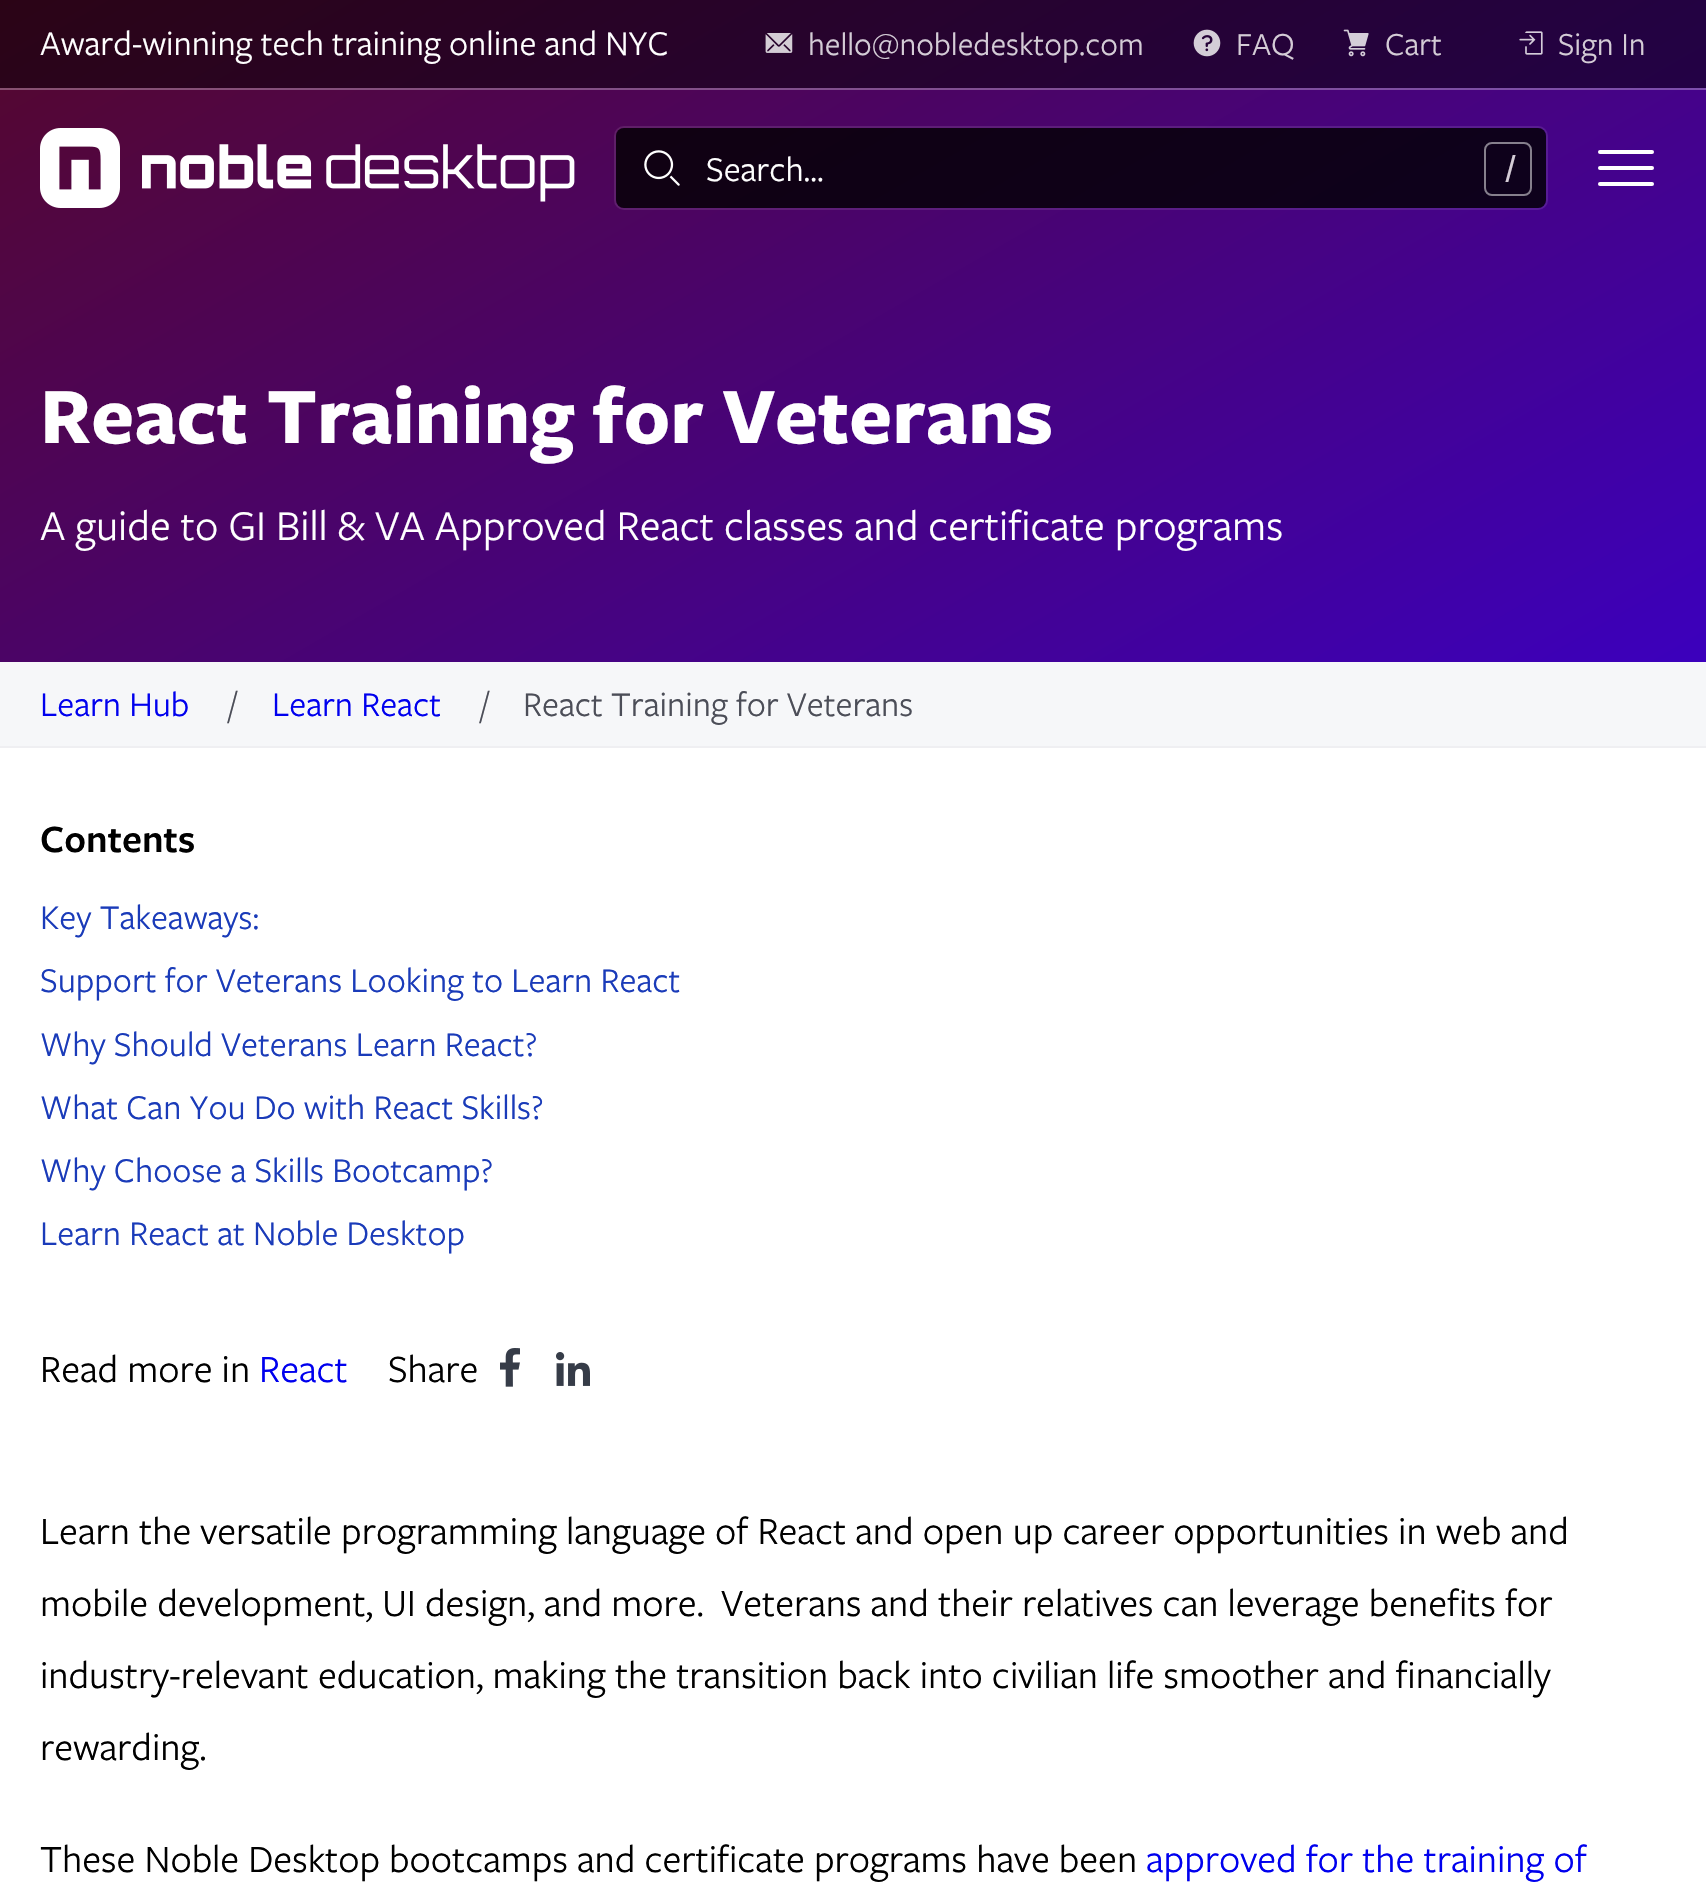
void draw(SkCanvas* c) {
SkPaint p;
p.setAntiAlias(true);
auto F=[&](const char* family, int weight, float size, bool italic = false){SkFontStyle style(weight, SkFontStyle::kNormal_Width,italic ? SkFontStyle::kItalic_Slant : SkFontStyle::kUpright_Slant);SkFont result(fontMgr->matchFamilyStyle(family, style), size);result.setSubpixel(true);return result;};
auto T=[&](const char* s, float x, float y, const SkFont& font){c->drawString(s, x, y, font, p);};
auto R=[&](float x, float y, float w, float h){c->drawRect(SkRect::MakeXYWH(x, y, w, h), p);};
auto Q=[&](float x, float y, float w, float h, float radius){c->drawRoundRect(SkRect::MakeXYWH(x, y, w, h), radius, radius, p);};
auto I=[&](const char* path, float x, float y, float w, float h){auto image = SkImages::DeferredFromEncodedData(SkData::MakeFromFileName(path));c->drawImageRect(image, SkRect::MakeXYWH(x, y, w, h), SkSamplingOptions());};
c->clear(0xffffffff);
{
const SkColor colors[] = {0xff55072b,0xff3c00bd};
const float stops[] = {0,1};
const SkPoint ends[] = {{496,-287}, {1210,949}};
p.setShader(SkGradientShader::MakeLinear(ends, colors, stops, 2, SkTileMode::kClamp));
p.setAlpha(255);
}
R(0,90,1706,572);
{
const SkColor colors[] = {0xff2b0416,0xff1e005f};
const float stops[] = {0,1};
const SkPoint ends[] = {{496,-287}, {1210,949}};
p.setShader(SkGradientShader::MakeLinear(ends, colors, stops, 2, SkTileMode::kClamp));
p.setAlpha(255);
}
R(0,0,1706,88);
{
const SkColor colors[] = {0xff88516b,0xff774dd1};
const float stops[] = {0,1};
const SkPoint ends[] = {{496,-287}, {1210,949}};
p.setShader(SkGradientShader::MakeLinear(ends, colors, stops, 2, SkTileMode::kClamp));
p.setAlpha(255);
}
R(0,88,1706,2);
auto f1 = F("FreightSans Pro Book",400,36);
p.setShader(nullptr);
p.setColor(0xffffffff);
T("Award-winning tech training online and NYC",40,55,f1);
I("1.png",765,33,28,20);
auto f2 = F("FreightSans Pro Book",400,33.25);
p.setColor(0xffd4ccd6);
T("hello@nobledesktop.com",808,55,f2);
I("2.png",1193,29,28,28);
T("FAQ",1236,55,f2);
I("3.png",1343,29,26,28);
T("Cart",1385,55,f2);
I("4.png",1519,31,24,24);
T("Sign In",1558,55,f2);
I("5.png",40,128,535,80);
p.setStroke(true);
p.setStrokeWidth(2);
p.setColor(0x1affffff);
c->drawRoundRect(SkRect::MakeXYWH(615,127,932,82),9,9,p);
p.setStroke(false);
p.setColor(0xcc000000);
Q(616,128,930,80,8);
I("6.png",644,150,36,36);
p.setColor(0xffffffff);
T("Search...",706,181,f1);
p.setStroke(true);
p.setColor(0xff86808d);
c->drawRoundRect(SkRect::MakeXYWH(1485,143,46,52),7,7,p);
auto f3 = F("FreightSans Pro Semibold",600,30);
p.setStroke(false);
p.setColor(0xffd4ccd6);
T("/",1507,176,f3);
p.setColor(0xffffffff);
Q(1598,150,56,4,2);
Q(1598,166,56,4,2);
Q(1598,182,56,4,2);
auto f4 = F("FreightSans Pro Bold",700,83);
T("React Training for Veterans",40,443,f4);
auto f5 = F("FreightSans Pro Book",400,44);
T("A guide to GI Bill & VA Approved React classes and certificate programs",40,540,f5);
p.setColor(0xfff6f7f9);
R(0,662,1706,84);
p.setColor(0xffefeff2);
R(0,746,1706,2);
p.setColor(0xff0000ee);
T("Learn Hub",40,716,f1);
p.setColor(0xff4c4e58);
T("/",229,716,f1);
p.setColor(0xff0000ee);
T("Learn React",272,716,f1);
p.setColor(0xff4c4e58);
T("/",481,716,f1);
T("React Training for Veterans",523,716,f1);
auto f6 = F("FreightSans Pro Semibold",600,40);
p.setColor(0xff000000);
T("Contents",40,852,f6);
p.setColor(0xff1a3bb9);
T("Key Takeaways:",40,929,f1);
T("Support for Veterans Looking to Learn React",40,992,f1);
T("Why Should Veterans Learn React?",40,1056,f1);
T("What Can You Do with React Skills?",40,1119,f1);
T("Why Choose a Skills Bootcamp?",40,1182,f1);
T("Learn React at Noble Desktop",40,1245,f1);
auto f7 = F("FreightSans Pro Book",400,40);
p.setColor(0xff000000);
T("Read more in",40,1382,f7);
p.setColor(0xff0000ee);
T("React",259,1382,f7);
p.setColor(0xff000000);
T("Share",388,1382,f7);
I("7.png",500,1348,20,39);
I("8.png",556,1352,34,34);
T("Learn the versatile programming language of React and open up career opportunities in web and",40,1544,f7);
T("mobile development, UI design, and more.",40,1616,f7);
T("Veterans and their relatives can leverage benefits for",721,1616,f7);
T("industry-relevant education, making the transition back into civilian life smoother and financially",40,1688,f7);
T("rewarding.",40,1760,f7);
T("These Noble Desktop bootcamps and certificate programs have been",40,1872,f7);
p.setColor(0xff0000ee);
T("approved for the training of",1146,1872,f7);
}
